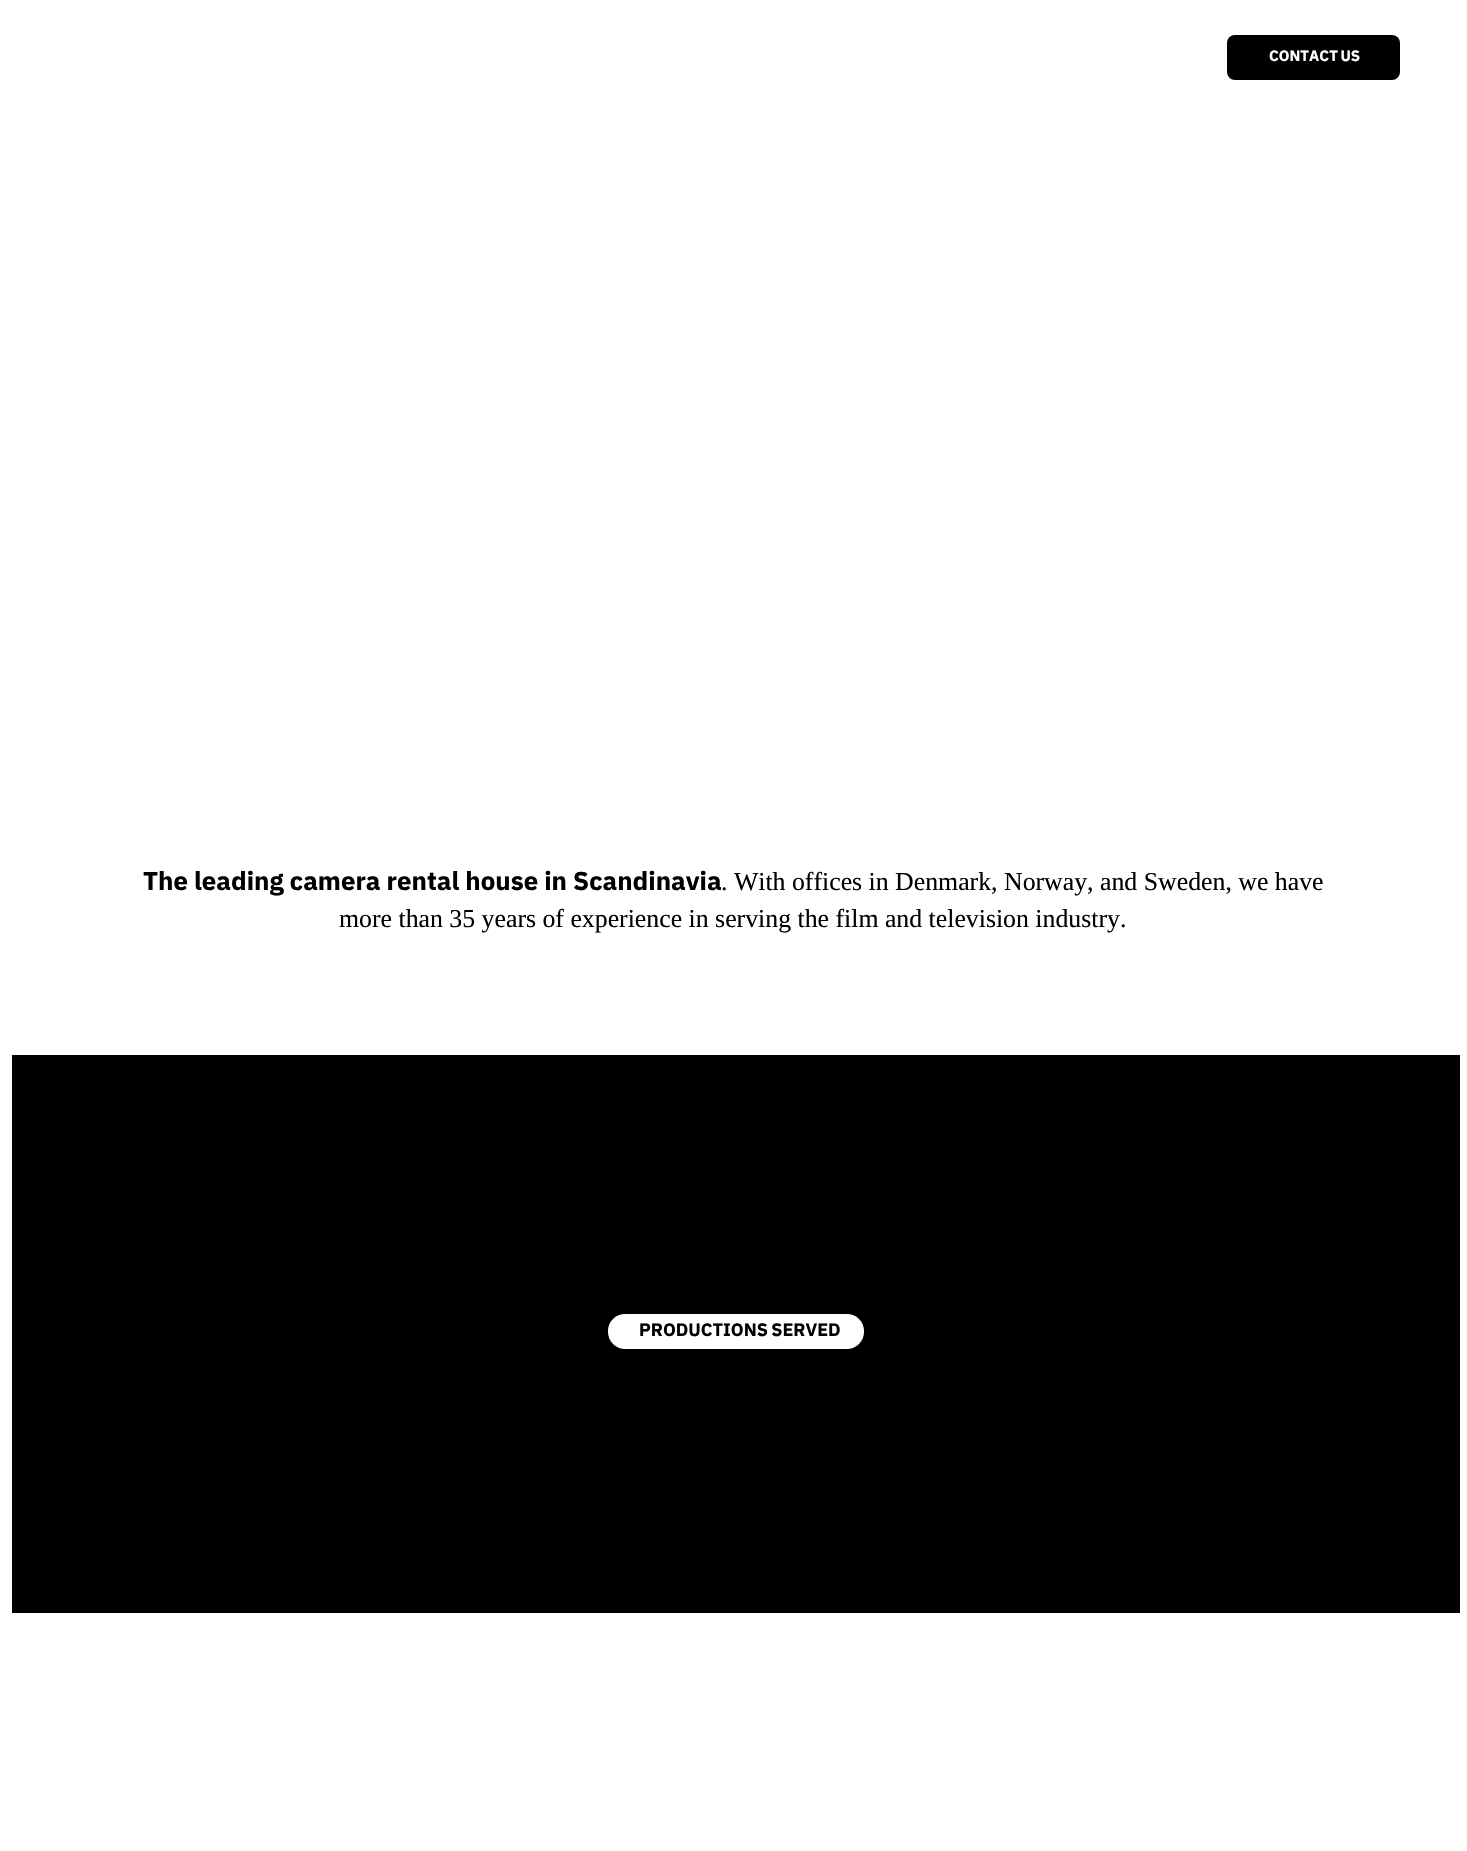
void draw(SkCanvas* c) {
SkPaint p;
p.setAntiAlias(true);
auto F=[&](const char* family, int weight, float size, bool italic = false){SkFontStyle style(weight, SkFontStyle::kNormal_Width,italic ? SkFontStyle::kItalic_Slant : SkFontStyle::kUpright_Slant);SkFont result(fontMgr->matchFamilyStyle(family, style), size);result.setSubpixel(true);return result;};
auto T=[&](const char* s, float x, float y, const SkFont& font){c->drawString(s, x, y, font, p);};
auto L=[&](const char* s, float x, float y, const SkFont& font, const SkPaint& ink, float letter, float word){std::vector<SkGlyphID> glyphs(font.countText(s, strlen(s), SkTextEncoding::kUTF8));std::vector<float> xs(glyphs.size());font.textToGlyphs(s, strlen(s), SkTextEncoding::kUTF8, glyphs);font.getXPos(glyphs, xs, x);float extra = 0;for (size_t i = 0; i < glyphs.size(); i++) {xs[i] += extra;extra += letter + word * (glyphs[i] == font.unicharToGlyph(' '));}c->drawTextBlob(SkTextBlob::MakeFromPosHGlyphs(glyphs, xs, y, font), 0, 0, ink);};
auto R=[&](float x, float y, float w, float h){c->drawRect(SkRect::MakeXYWH(x, y, w, h), p);};
auto Q=[&](float x, float y, float w, float h, float radius){c->drawRoundRect(SkRect::MakeXYWH(x, y, w, h), radius, radius, p);};
c->clear(0xffffffff);
p.setColor(0xff000000);
Q(1227,35,173,45,8);
auto f1 = F("IBM Plex Sans Arabic",700,15);
p.setColor(0xffffffff);
L("CONTACT US",1269,61,f1,p,0,-1);
auto f2 = F("IBM Plex Sans Arabic",700,25.8);
p.setColor(0xff000000);
T("The leading camera rental house in Scandinavia",143,890,f2);
auto f3 = F("Liberation Serif",400,25.8);
T(". With offices in Denmark, Norway, and Sweden, we have",721,890,f3);
T("more than 35 years of experience in serving the film and television industry.",339,927,f3);
R(12,1055,1448,558);
p.setColor(0xffffffff);
Q(608,1314,256,35,17);
auto f4 = F("IBM Plex Sans Arabic",700,18);
p.setColor(0xff000000);
L("PRODUCTIONS SERVED",639,1336,f4,p,0,-1);
}
